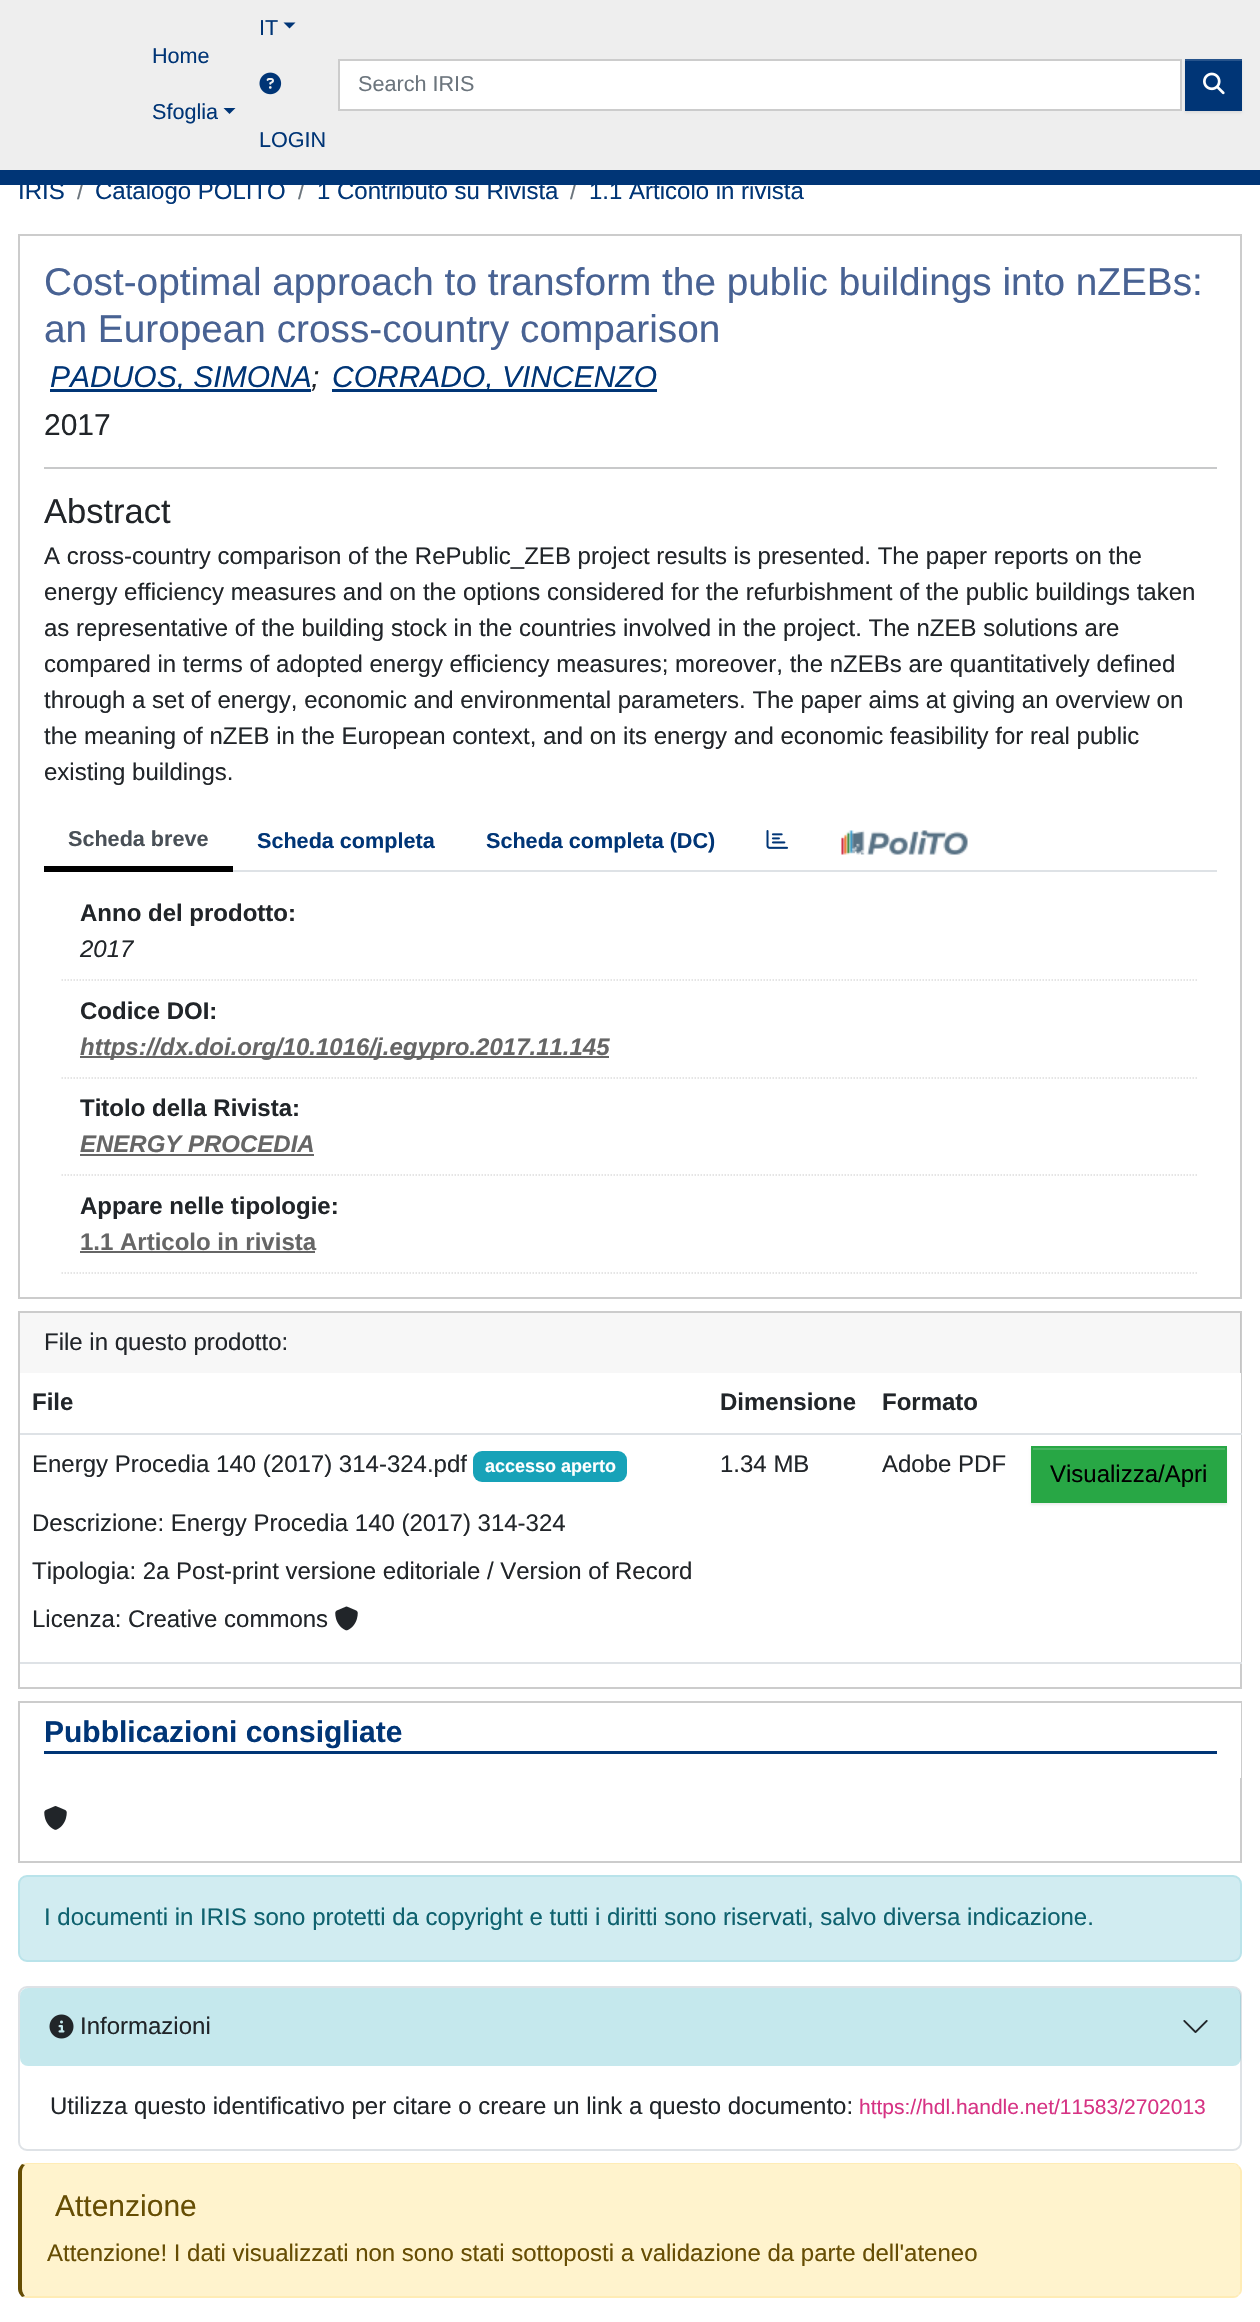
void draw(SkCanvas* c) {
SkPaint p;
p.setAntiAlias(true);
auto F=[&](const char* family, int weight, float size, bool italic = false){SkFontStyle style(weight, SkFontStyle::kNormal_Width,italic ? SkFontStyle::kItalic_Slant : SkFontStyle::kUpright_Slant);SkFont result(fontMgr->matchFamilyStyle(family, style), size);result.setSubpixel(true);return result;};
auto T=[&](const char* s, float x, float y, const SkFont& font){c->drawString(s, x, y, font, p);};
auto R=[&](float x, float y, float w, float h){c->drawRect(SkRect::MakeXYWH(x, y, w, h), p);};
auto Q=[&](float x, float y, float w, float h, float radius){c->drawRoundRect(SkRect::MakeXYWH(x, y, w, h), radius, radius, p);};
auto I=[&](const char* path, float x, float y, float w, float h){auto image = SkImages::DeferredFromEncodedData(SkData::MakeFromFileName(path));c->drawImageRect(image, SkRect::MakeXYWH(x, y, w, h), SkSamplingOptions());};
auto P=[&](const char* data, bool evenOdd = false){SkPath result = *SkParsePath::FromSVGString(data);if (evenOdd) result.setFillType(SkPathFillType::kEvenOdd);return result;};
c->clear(0xffffffff);
p.setColor(0xffeeeeee);
R(0,0,1260,170);
auto f1 = F("Liberation Sans",400,24);
p.setColor(0xff6c757d);
T("/",77,199,f1);
T("/",298,199,f1);
T("/",570,199,f1);
p.setColor(0xff003576);
R(0,170,1260,15);
auto f2 = F("Liberation Sans",400,21.6);
T("Home",152,63,f2);
T("Sfoglia",152,119,f2);
c->drawPath(P("M223.5 108h12l-6 6z"),p);
T("IT",259,35,f2);
c->drawPath(P("M283.5 22.5h12l-6 6z"),p);
I("1.png",259,72,23,23);
T("LOGIN",259,147,f2);
p.setColor(0xffffffff);
c->drawRect(SkRect::MakeXYWH(339,60,842,50),p);
p.setStroke(true);
p.setStrokeWidth(2);
p.setColor(0xffcccccc);
c->drawRect(SkRect::MakeXYWH(339,60,842,50),p);
p.setStroke(false);
p.setColor(0xff6c757d);
T("Search IRIS",358,91,f2);
p.setColor(0x12000000);
p.setMaskFilter(SkMaskFilter::MakeBlur(kNormal_SkBlurStyle, 1));
c->drawRect(SkRect::MakeXYWH(1185,60,57,53),p);
p.setMaskFilter(nullptr);
p.setColor(0xff003576);
R(1185,61,57,50);
p.setColor(0xff26538b);
R(1185,59,57,2);
I("2.png",1203,72,22,23);
p.setColor(0xff003576);
T("IRIS",18,199,f1);
T("Catalogo POLITO",95,199,f1);
T("1 Contributo su Rivista",317,199,f1);
T("1.1 Articolo in rivista",589,199,f1);
p.setStroke(true);
p.setColor(0xffcccccc);
c->drawRect(SkRect::MakeXYWH(19,235,1222,1063),p);
auto f3 = F("Liberation Sans",400,38.75);
p.setStroke(false);
p.setColor(0xff486293);
T("Cost-optimal approach to transform the public buildings into nZEBs:",44,295,f3);
T("an European cross-country comparison",44,342,f3);
p.setColor(0xff003576);
R(50,389,261,3);
auto f4 = F("Liberation Sans",400,30,true);
T("PADUOS, SIMONA",50,387,f4);
p.setColor(0xff212529);
T(";",311,387,f4);
p.setColor(0xff003576);
R(332,389,325,3);
T("CORRADO, VINCENZO",332,387,f4);
auto f5 = F("Liberation Sans",400,30);
p.setColor(0xff212529);
T("2017",44,435,f5);
p.setColor(0xffc8c9ca);
R(44,467,1173,2);
auto f6 = F("Liberation Sans",400,34.5);
p.setColor(0xff212529);
T("Abstract",44,523,f6);
T("A cross-country comparison of the RePublic_ZEB project results is presented. The paper reports on the",44,564,f1);
T("energy efficiency measures and on the options considered for the refurbishment of the public buildings taken",44,600,f1);
T("as representative of the building stock in the countries involved in the project. The nZEB solutions are",44,636,f1);
T("compared in terms of adopted energy efficiency measures; moreover, the nZEBs are quantitatively defined",44,672,f1);
T("through a set of energy, economic and environmental parameters. The paper aims at giving an overview on",44,708,f1);
T("the meaning of nZEB in the European context, and on its energy and economic feasibility for real public",44,744,f1);
T("existing buildings.",44,780,f1);
p.setColor(0xffdee2e6);
R(233,870,984,2);
p.setColor(0xff000000);
R(44,866,189,6);
auto f7 = F("Liberation Sans",700,21.6);
p.setColor(0xff495057);
T("Scheda breve",68,846,f7);
p.setColor(0xff003576);
T("Scheda completa",257,848,f7);
T("Scheda completa (DC)",486,848,f7);
I("3.png",766,830,23,19);
I("4.png",841,830,127,25);
p.setStroke(true);
p.setStrokeWidth(1.5);
p.setColor(0xffdddddd);
p.setPathEffect(SkDashPathEffect::Make({{1.5f,1.5f}}, 0));
c->drawPath(P("M61.5 980h1137"),p);
p.setPathEffect(nullptr);
auto f8 = F("Liberation Sans",700,24);
p.setStroke(false);
p.setColor(0xff212529);
T("Anno del prodotto:",80,921,f8);
auto f9 = F("Liberation Sans",400,24,true);
T("2017",80,957,f9);
p.setStroke(true);
p.setColor(0xffdddddd);
p.setPathEffect(SkDashPathEffect::Make({{1.5f,1.5f}}, 0));
c->drawPath(P("M61.5 1078h1137"),p);
p.setPathEffect(nullptr);
p.setStroke(false);
p.setColor(0xff212529);
T("Codice DOI:",80,1019,f8);
p.setColor(0xff666666);
R(80,1056,529,2);
auto f10 = F("Liberation Sans",700,24,true);
T("https://dx.doi.org/10.1016/j.egypro.2017.11.145",80,1055,f10);
p.setStroke(true);
p.setColor(0xffdddddd);
p.setPathEffect(SkDashPathEffect::Make({{1.5f,1.5f}}, 0));
c->drawPath(P("M61.5 1175h1137"),p);
p.setPathEffect(nullptr);
p.setStroke(false);
p.setColor(0xff212529);
T("Titolo della Rivista:",80,1116,f8);
p.setColor(0xff666666);
T("ENERGY PROCEDIA",80,1152,f10);
R(80,1154,234,2);
p.setStroke(true);
p.setColor(0xffdddddd);
p.setPathEffect(SkDashPathEffect::Make({{1.5f,1.5f}}, 0));
c->drawPath(P("M61.5 1273h1137"),p);
p.setPathEffect(nullptr);
p.setStroke(false);
p.setColor(0xff212529);
T("Appare nelle tipologie:",80,1214,f8);
p.setColor(0xff666666);
T("1.1 Articolo in rivista",80,1250,f8);
R(80,1251,235,2);
p.setStroke(true);
p.setStrokeWidth(2);
p.setColor(0xffcccccc);
c->drawRect(SkRect::MakeXYWH(19,1312,1222,376),p);
p.setStroke(false);
p.setColor(0x08000000);
R(20,1313,1221,60);
p.setColor(0xff212529);
T("File in questo prodotto:",44,1350,f1);
p.setColor(0xffffffff);
R(1240,1373,1,289);
p.setColor(0xff212529);
T("File",32,1410,f8);
T("Dimensione",720,1410,f8);
T("Formato",882,1410,f8);
p.setColor(0xffdee2e6);
R(20,1433,1222,2);
p.setColor(0xff212529);
T("Energy Procedia 140 (2017) 314-324.pdf",32,1472,f1);
p.setColor(0xff17a2b8);
Q(473,1451,154,31,9);
auto f11 = F("Liberation Sans",700,18);
p.setColor(0xffffffff);
T("accesso aperto",485,1472,f11);
p.setColor(0xff212529);
T("Descrizione: Energy Procedia 140 (2017) 314-324",32,1531,f1);
T("Tipologia: 2a Post-print versione editoriale / Version of Record",32,1579,f1);
T("Licenza: Creative commons",32,1627,f1);
I("5.png",335,1606,23,25);
T("1.34 MB",720,1472,f1);
T("Adobe PDF",882,1472,f1);
p.setColor(0xffdee2e6);
R(20,1662,1222,2);
p.setColor(0x12000000);
p.setMaskFilter(SkMaskFilter::MakeBlur(kNormal_SkBlurStyle, 1));
c->drawRect(SkRect::MakeXYWH(1031,1448,196,57),p);
p.setMaskFilter(nullptr);
p.setColor(0xff28a745);
R(1033,1450,192,51);
p.setColor(0xff48b461);
R(1032,1448,194,2);
p.setStroke(true);
p.setColor(0xff28a745);
c->drawRect(SkRect::MakeXYWH(1032,1447,194,55),p);
p.setStroke(false);
p.setColor(0xff000000);
T("Visualizza/Apri",1050,1482,f1);
p.setStroke(true);
p.setColor(0xffcccccc);
c->drawRect(SkRect::MakeXYWH(19,1702,1222,160),p);
p.setStroke(false);
p.setColor(0xffffffff);
R(1240,1703,1,75);
p.setColor(0xff003576);
R(44,1751,1173,3);
auto f12 = F("Liberation Sans",700,30);
T("Pubblicazioni consigliate",44,1742,f12);
I("6.png",44,1806,23,24);
p.setColor(0xffd1ecf1);
c->drawRoundRect(SkRect::MakeXYWH(19,1876,1222,85),8,8,p);
p.setStroke(true);
p.setColor(0xffb9e3ea);
c->drawRoundRect(SkRect::MakeXYWH(19,1876,1222,85),8,8,p);
p.setStroke(false);
p.setColor(0xff0e616e);
T("I documenti in IRIS sono protetti da copyright e tutti i diritti sono riservati, salvo diversa indicazione.",44,1925,f1);
p.setStroke(true);
p.setColor(0xffdee2e6);
c->drawRoundRect(SkRect::MakeXYWH(19,1987,1222,163),8,8,p);
p.setStroke(false);
p.setColor(0x4017a2b8);
Q(20,1988,1221,78,8);
I("7.png",49,2014,25,25);
p.setColor(0xff212529);
T("Informazioni",80,2034,f1);
I("8.png",1183,2020,25,13);
T("Utilizza questo identificativo per citare o creare un link a questo documento:",50,2114,f1);
auto f13 = F("Liberation Sans",400,21);
p.setColor(0xffd63384);
T("https://hdl.handle.net/11583/2702013",859,2114,f13);
p.setColor(0xfffff3cd);
c->drawPath(P("M27 2164h1206c4 0 7 4 7 8v117c0 4-3 7-7 7h-1206c-2 0-5-3-5-7v-117c0-4 3-8 5-8z"),p);
p.setColor(0xffffecb5);
c->drawPath(P("M27 2163c-2 0-3 1-5 1l3 1l2-1h1206c2 0 4 1 5 3l1-1c-1-2-3-3-6-3z"),p);
c->drawPath(P("M1242 2289v-117c0-2-1-5-3-6l-1 1c1 1 2 3 2 5v117c0 2-1 4-2 5l1 1c2-1 3-3 3-6z"),p);
c->drawPath(P("M27 2298h1206c3 0 5-1 6-3l-1-1c-1 1-3 2-5 2h-1206h-2l-3 1c2 0 3 1 5 1z"),p);
p.setColor(0xff664d03);
c->drawPath(P("M18 2172v117c0 3 2 6 4 8l3-1c-1-1-3-4-3-7v-117c0-3 1-5 3-7l-3-1c-2 2-4 5-4 8z"),p);
T("Attenzione",55,2216,f5);
T("Attenzione! I dati visualizzati non sono stati sottoposti a validazione da parte dell'ateneo",47,2261,f1);
}
